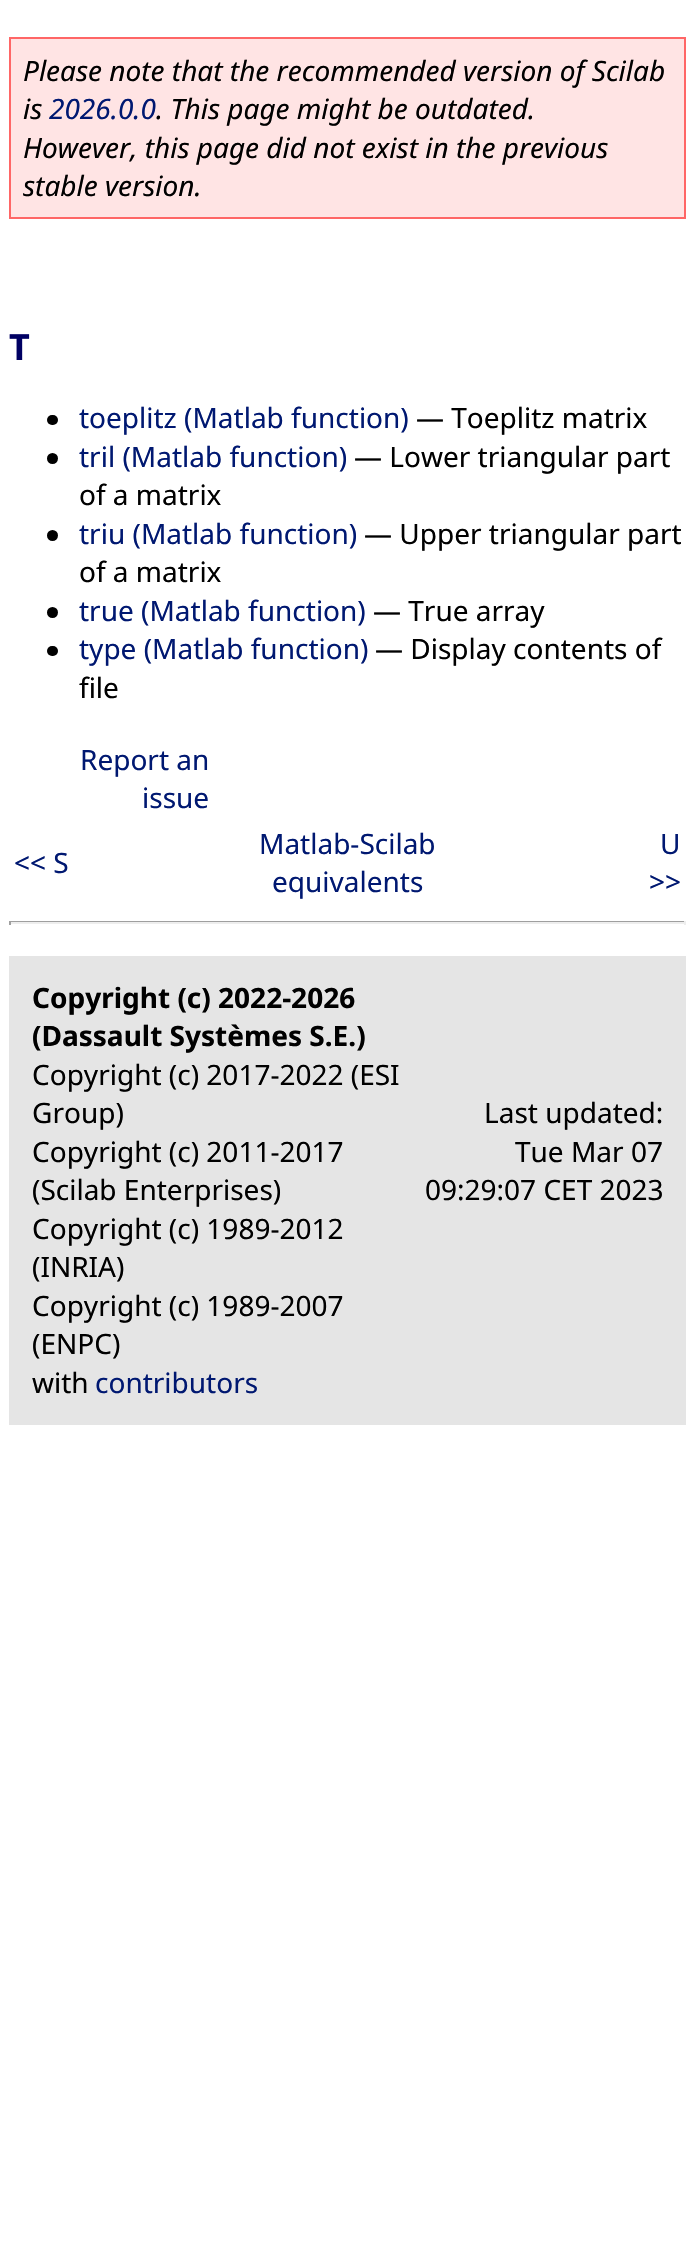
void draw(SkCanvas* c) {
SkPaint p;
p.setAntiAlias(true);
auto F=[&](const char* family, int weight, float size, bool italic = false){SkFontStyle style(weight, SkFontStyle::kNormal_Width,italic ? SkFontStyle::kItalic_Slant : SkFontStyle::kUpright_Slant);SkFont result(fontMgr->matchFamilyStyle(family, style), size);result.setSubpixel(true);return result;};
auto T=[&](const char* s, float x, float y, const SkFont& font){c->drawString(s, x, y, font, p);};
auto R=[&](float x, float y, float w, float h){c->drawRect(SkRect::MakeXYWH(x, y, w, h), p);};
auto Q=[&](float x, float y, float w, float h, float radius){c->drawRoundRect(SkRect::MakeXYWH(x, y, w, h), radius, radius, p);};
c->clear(0xffffffff);
p.setColor(0xffffe4e4);
c->drawRect(SkRect::MakeXYWH(10,38,675,180),p);
p.setStroke(true);
p.setStrokeWidth(2);
p.setColor(0xffff6666);
c->drawRect(SkRect::MakeXYWH(10,38,675,180),p);
auto f1 = F("Noto Sans",400,28,true);
p.setStroke(false);
p.setColor(0xff000000);
T("Please note that the recommended version of Scilab",23,81,f1);
T("is",23,119,f1);
p.setColor(0xff001871);
T("2026.0.0",49,119,f1);
p.setColor(0xff000000);
T(". This page might be outdated.",156,119,f1);
T("However, this page did not exist in the previous",23,158,f1);
T("stable version.",23,196,f1);
auto f2 = F("Noto Sans",700,36);
p.setColor(0xff000063);
T("T",9,360,f2);
p.setColor(0xff000000);
Q(47,415,11,10,5);
auto f3 = F("Noto Sans",400,28);
p.setColor(0xff001871);
T("toeplitz (Matlab function)",79,428,f3);
p.setColor(0xff000000);
T("— Toeplitz matrix",416,428,f3);
c->drawCircle(52.5,458.5,5.5,p);
p.setColor(0xff001871);
T("tril (Matlab function)",79,467,f3);
p.setColor(0xff000000);
T("— Lower triangular part",354,467,f3);
T("of a matrix",79,505,f3);
c->drawCircle(52.5,535.5,5.5,p);
p.setColor(0xff001871);
T("triu (Matlab function)",79,544,f3);
p.setColor(0xff000000);
T("— Upper triangular part",364,544,f3);
T("of a matrix",79,582,f3);
c->drawCircle(52.5,612.5,5.5,p);
p.setColor(0xff001871);
T("true (Matlab function)",79,621,f3);
p.setColor(0xff000000);
T("— True array",373,621,f3);
Q(47,646,11,10,5);
p.setColor(0xff001871);
T("type (Matlab function)",79,659,f3);
p.setColor(0xff000000);
T("— Display contents of",375,659,f3);
T("file",79,698,f3);
p.setColor(0xff001871);
T("Report an",80,770,f3);
T("issue",142,808,f3);
T("<< S",14,873,f3);
T("Matlab-Scilab",259,854,f3);
T("equivalents",272,892,f3);
T("U",660,854,f3);
T(">>",649,892,f3);
p.setColor(0xff9f9f9f);
R(9,921,677,1);
p.setColor(0xffeeeeee);
R(684,921,2,4);
R(9,922,677,2);
p.setColor(0xff9f9f9f);
R(9,921,2,4);
p.setColor(0xffe5e5e5);
R(9,956,677,469);
auto f4 = F("Noto Sans",700,28);
p.setColor(0xff000000);
T("Copyright (c) 2022-2026",32,1008,f4);
T("(Dassault Systèmes S.E.)",32,1046,f4);
T("Copyright (c) 2017-2022 (ESI",32,1085,f3);
T("Group)",32,1123,f3);
T("Copyright (c) 2011-2017",32,1162,f3);
T("(Scilab Enterprises)",32,1200,f3);
T("Copyright (c) 1989-2012",32,1239,f3);
T("(INRIA)",32,1277,f3);
T("Copyright (c) 1989-2007",32,1316,f3);
T("(ENPC)",32,1354,f3);
T("with",32,1393,f3);
p.setColor(0xff001871);
T("contributors",95,1393,f3);
p.setColor(0xff000000);
T("Last updated:",484,1123,f3);
T("Tue Mar 07",515,1162,f3);
T("09:29:07 CET 2023",425,1200,f3);
}
